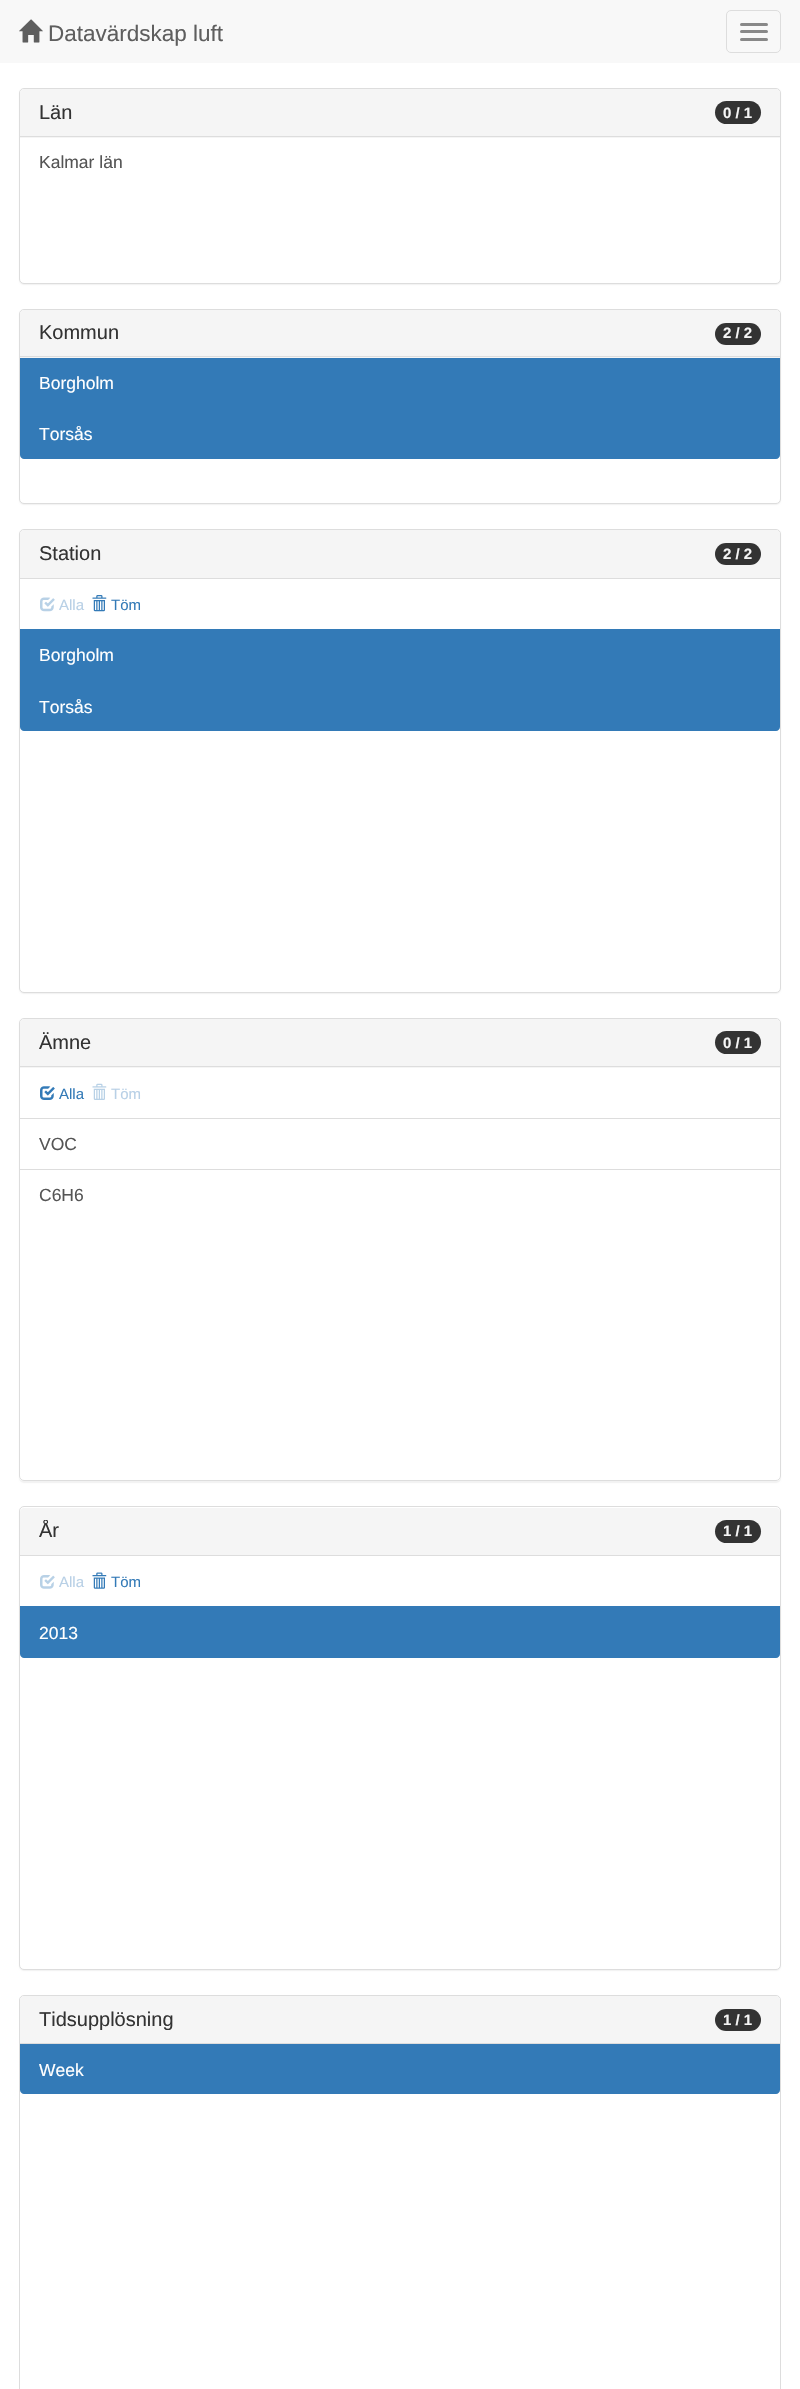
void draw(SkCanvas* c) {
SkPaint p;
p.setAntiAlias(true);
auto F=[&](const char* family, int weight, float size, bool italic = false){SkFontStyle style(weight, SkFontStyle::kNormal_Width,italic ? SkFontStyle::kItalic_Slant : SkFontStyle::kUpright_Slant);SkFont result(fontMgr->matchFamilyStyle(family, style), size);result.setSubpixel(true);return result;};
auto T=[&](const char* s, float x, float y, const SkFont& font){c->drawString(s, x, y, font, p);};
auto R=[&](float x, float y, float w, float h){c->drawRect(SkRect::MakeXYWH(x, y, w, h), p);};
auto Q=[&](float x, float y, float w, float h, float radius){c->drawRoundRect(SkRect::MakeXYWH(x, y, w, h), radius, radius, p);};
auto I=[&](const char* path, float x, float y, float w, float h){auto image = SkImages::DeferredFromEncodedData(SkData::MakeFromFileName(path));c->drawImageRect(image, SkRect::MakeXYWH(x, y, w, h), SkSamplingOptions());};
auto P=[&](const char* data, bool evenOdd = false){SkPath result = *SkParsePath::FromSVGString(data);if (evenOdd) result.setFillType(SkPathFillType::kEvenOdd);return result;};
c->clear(0xffffffff);
p.setColor(0xfff8f8f8);
R(0,0,800,63);
I("1.png",19,19,24,24);
auto f1 = F("Liberation Sans",400,22.5);
p.setColor(0xff5e5e5e);
T("Datavärdskap luft",48,41,f1);
p.setStroke(true);
p.setStrokeWidth(1);
p.setColor(0xffdddddd);
c->drawRoundRect(SkRect::MakeXYWH(726.5,10.5,54,42),4.5,4.5,p);
p.setStroke(false);
p.setColor(0xff888888);
Q(740,23,28,3,1.5);
Q(740,30,28,3,1.5);
Q(740,38,28,3,1.5);
p.setColor(0x0d000000);
p.setMaskFilter(SkMaskFilter::MakeBlur(kNormal_SkBlurStyle, .5));
c->drawRoundRect(SkRect::MakeXYWH(19,89,762,196),5,5,p);
p.setMaskFilter(nullptr);
p.setColor(0xffffffff);
c->drawRoundRect(SkRect::MakeXYWH(19.5,88.5,761,195),4.5,4.5,p);
p.setStroke(true);
p.setColor(0xffdddddd);
c->drawRoundRect(SkRect::MakeXYWH(19.5,88.5,761,195),4.5,4.5,p);
p.setStroke(false);
p.setColor(0xfff5f5f5);
c->drawPath(P("M24 89h752c2 0 4 2 4 4v45h-760v-45c0-2 2-4 4-4z"),p);
p.setColor(0xffdddddd);
R(20,136,760,1);
auto f2 = F("Liberation Sans",400,20);
p.setColor(0xff333333);
T("Län",39,119,f2);
Q(715,101,46,23,11.5);
auto f3 = F("Liberation Sans",700,15);
p.setColor(0xfff5f5f5);
T("0 / 1",723,118,f3);
auto f4 = F("Liberation Sans",400,17.5);
p.setColor(0xff555555);
T("Kalmar län",39,168,f4);
p.setColor(0x0d000000);
p.setMaskFilter(SkMaskFilter::MakeBlur(kNormal_SkBlurStyle, .5));
c->drawRoundRect(SkRect::MakeXYWH(19,310,762,195),5,5,p);
p.setMaskFilter(nullptr);
p.setColor(0xffffffff);
c->drawRoundRect(SkRect::MakeXYWH(19.5,309.5,761,194),4.5,4.5,p);
p.setStroke(true);
p.setColor(0xffdddddd);
c->drawRoundRect(SkRect::MakeXYWH(19.5,309.5,761,194),4.5,4.5,p);
p.setStroke(false);
p.setColor(0xfff5f5f5);
c->drawPath(P("M24 310h752c2 0 4 2 4 4v44h-760v-44c0-2 2-4 4-4z"),p);
p.setColor(0xffdddddd);
R(20,356,760,1);
p.setColor(0xff333333);
T("Kommun",39,339,f2);
Q(715,323,46,22,11);
p.setColor(0xfff5f5f5);
T("2 / 2",723,338,f3);
p.setColor(0xff337ab7);
R(20,358,760,50);
p.setColor(0xffffffff);
T("Borgholm",39,389,f4);
p.setColor(0xff337ab7);
c->drawPath(P("M20 408h760v47c0 2-2 4-4 4h-752c-2 0-4-2-4-4z"),p);
p.setColor(0xffffffff);
T("Torsås",39,440,f4);
p.setColor(0x0d000000);
p.setMaskFilter(SkMaskFilter::MakeBlur(kNormal_SkBlurStyle, .5));
c->drawRoundRect(SkRect::MakeXYWH(19,530,762,464),5,5,p);
p.setMaskFilter(nullptr);
p.setColor(0xffffffff);
c->drawRoundRect(SkRect::MakeXYWH(19.5,529.5,761,463),4.5,4.5,p);
p.setStroke(true);
p.setColor(0xffdddddd);
c->drawRoundRect(SkRect::MakeXYWH(19.5,529.5,761,463),4.5,4.5,p);
p.setStroke(false);
p.setColor(0xfff5f5f5);
c->drawPath(P("M24 530h752c2 0 4 2 4 4v45h-760v-45c0-2 2-4 4-4z"),p);
p.setColor(0xffdddddd);
R(20,578,760,1);
p.setColor(0xff333333);
T("Station",39,560,f2);
Q(715,543,46,22,11);
p.setColor(0xfff5f5f5);
T("2 / 2",723,559,f3);
I("2.png",40,597,15,15);
auto f5 = F("Liberation Sans",400,15);
p.setColor(0xffb8d0e6);
T("Alla",59,610,f5);
I("3.png",92,595,15,17);
p.setColor(0xff337ab7);
T("Töm",111,610,f5);
R(20,629,760,51);
p.setColor(0xffffffff);
T("Borgholm",39,661,f4);
p.setColor(0xff337ab7);
c->drawPath(P("M20 680h760v47c0 2-2 4-4 4h-752c-2 0-4-2-4-4z"),p);
p.setColor(0xffffffff);
T("Torsås",39,713,f4);
c->save();
c->clipPath(P("M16 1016h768v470h-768zm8 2h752c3 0 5 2 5 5v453c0 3-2 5-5 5h-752c-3 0-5-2-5-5v-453c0-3 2-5 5-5z",true),true);
p.setColor(0x0d000000);
p.setMaskFilter(SkMaskFilter::MakeBlur(kNormal_SkBlurStyle, .5));
c->drawRoundRect(SkRect::MakeXYWH(19,1019,762,464),5,5,p);
p.setMaskFilter(nullptr);
c->restore();
p.setStroke(true);
p.setColor(0xffdddddd);
c->drawRoundRect(SkRect::MakeXYWH(19.5,1018.5,761,462),4.5,4.5,p);
p.setStroke(false);
p.setColor(0xfff5f5f5);
c->drawPath(P("M24 1019h752c2 0 4 2 4 4v45h-760v-45c0-2 2-4 4-4z"),p);
p.setColor(0xffdddddd);
R(20,1066,760,1);
p.setColor(0xff333333);
T("Ämne",39,1049,f2);
Q(715,1031,46,23,11.5);
p.setColor(0xfff5f5f5);
T("0 / 1",723,1048,f3);
I("4.png",40,1086,15,14);
p.setColor(0xff337ab7);
T("Alla",59,1099,f5);
I("5.png",92,1083,15,17);
p.setColor(0xffb8d0e6);
T("Töm",111,1099,f5);
p.setColor(0xffdddddd);
R(20,1118,760,1);
p.setColor(0xff555555);
T("VOC",39,1150,f4);
p.setColor(0xffdddddd);
R(20,1169,760,1);
p.setColor(0xff555555);
T("C6H6",39,1201,f4);
p.setColor(0x0d000000);
p.setMaskFilter(SkMaskFilter::MakeBlur(kNormal_SkBlurStyle, .5));
c->drawRoundRect(SkRect::MakeXYWH(19,1508,762,463),5,5,p);
p.setMaskFilter(nullptr);
p.setColor(0xffffffff);
c->drawRoundRect(SkRect::MakeXYWH(19.5,1506.5,761,463),4.5,4.5,p);
p.setStroke(true);
p.setColor(0xffdddddd);
c->drawRoundRect(SkRect::MakeXYWH(19.5,1506.5,761,463),4.5,4.5,p);
p.setStroke(false);
p.setColor(0xfff5f5f5);
c->drawPath(P("M24 1508h752c2 0 4 2 4 4v44h-760v-44c0-2 2-4 4-4z"),p);
p.setColor(0xffdddddd);
R(20,1555,760,1);
c->save();
c->clipRect(SkRect::MakeXYWH(39,1520,676,23));
p.setColor(0xff333333);
T("År",39,1537,f2);
c->restore();
Q(715,1520,46,23,11.5);
p.setColor(0xfff5f5f5);
T("1 / 1",723,1536,f3);
I("6.png",40,1575,15,14);
p.setColor(0xffb8d0e6);
T("Alla",59,1587,f5);
I("7.png",92,1572,15,17);
p.setColor(0xff337ab7);
T("Töm",111,1587,f5);
c->drawPath(P("M20 1606h760v48c0 2-2 4-4 4h-752c-2 0-4-2-4-4z"),p);
p.setColor(0xffffffff);
T("2013",39,1639,f4);
p.setStroke(true);
p.setColor(0xffdddddd);
c->drawRoundRect(SkRect::MakeXYWH(19.5,1995.5,761,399),4.5,4.5,p);
p.setStroke(false);
p.setColor(0xfff5f5f5);
c->drawPath(P("M24 1996h752c2 0 4 2 4 4v44h-760v-44c0-2 2-4 4-4z"),p);
p.setColor(0xffdddddd);
R(20,2043,760,1);
c->save();
c->clipRect(SkRect::MakeXYWH(39,2009,676,21));
p.setColor(0xff333333);
T("Tidsupplösning",39,2026,f2);
c->restore();
Q(715,2009,46,22,11);
p.setColor(0xfff5f5f5);
T("1 / 1",723,2025,f3);
p.setColor(0xff337ab7);
c->drawPath(P("M20 2044h760v46c0 2-2 4-4 4h-752c-2 0-4-2-4-4z"),p);
p.setColor(0xffffffff);
T("Week",39,2076,f4);
}
